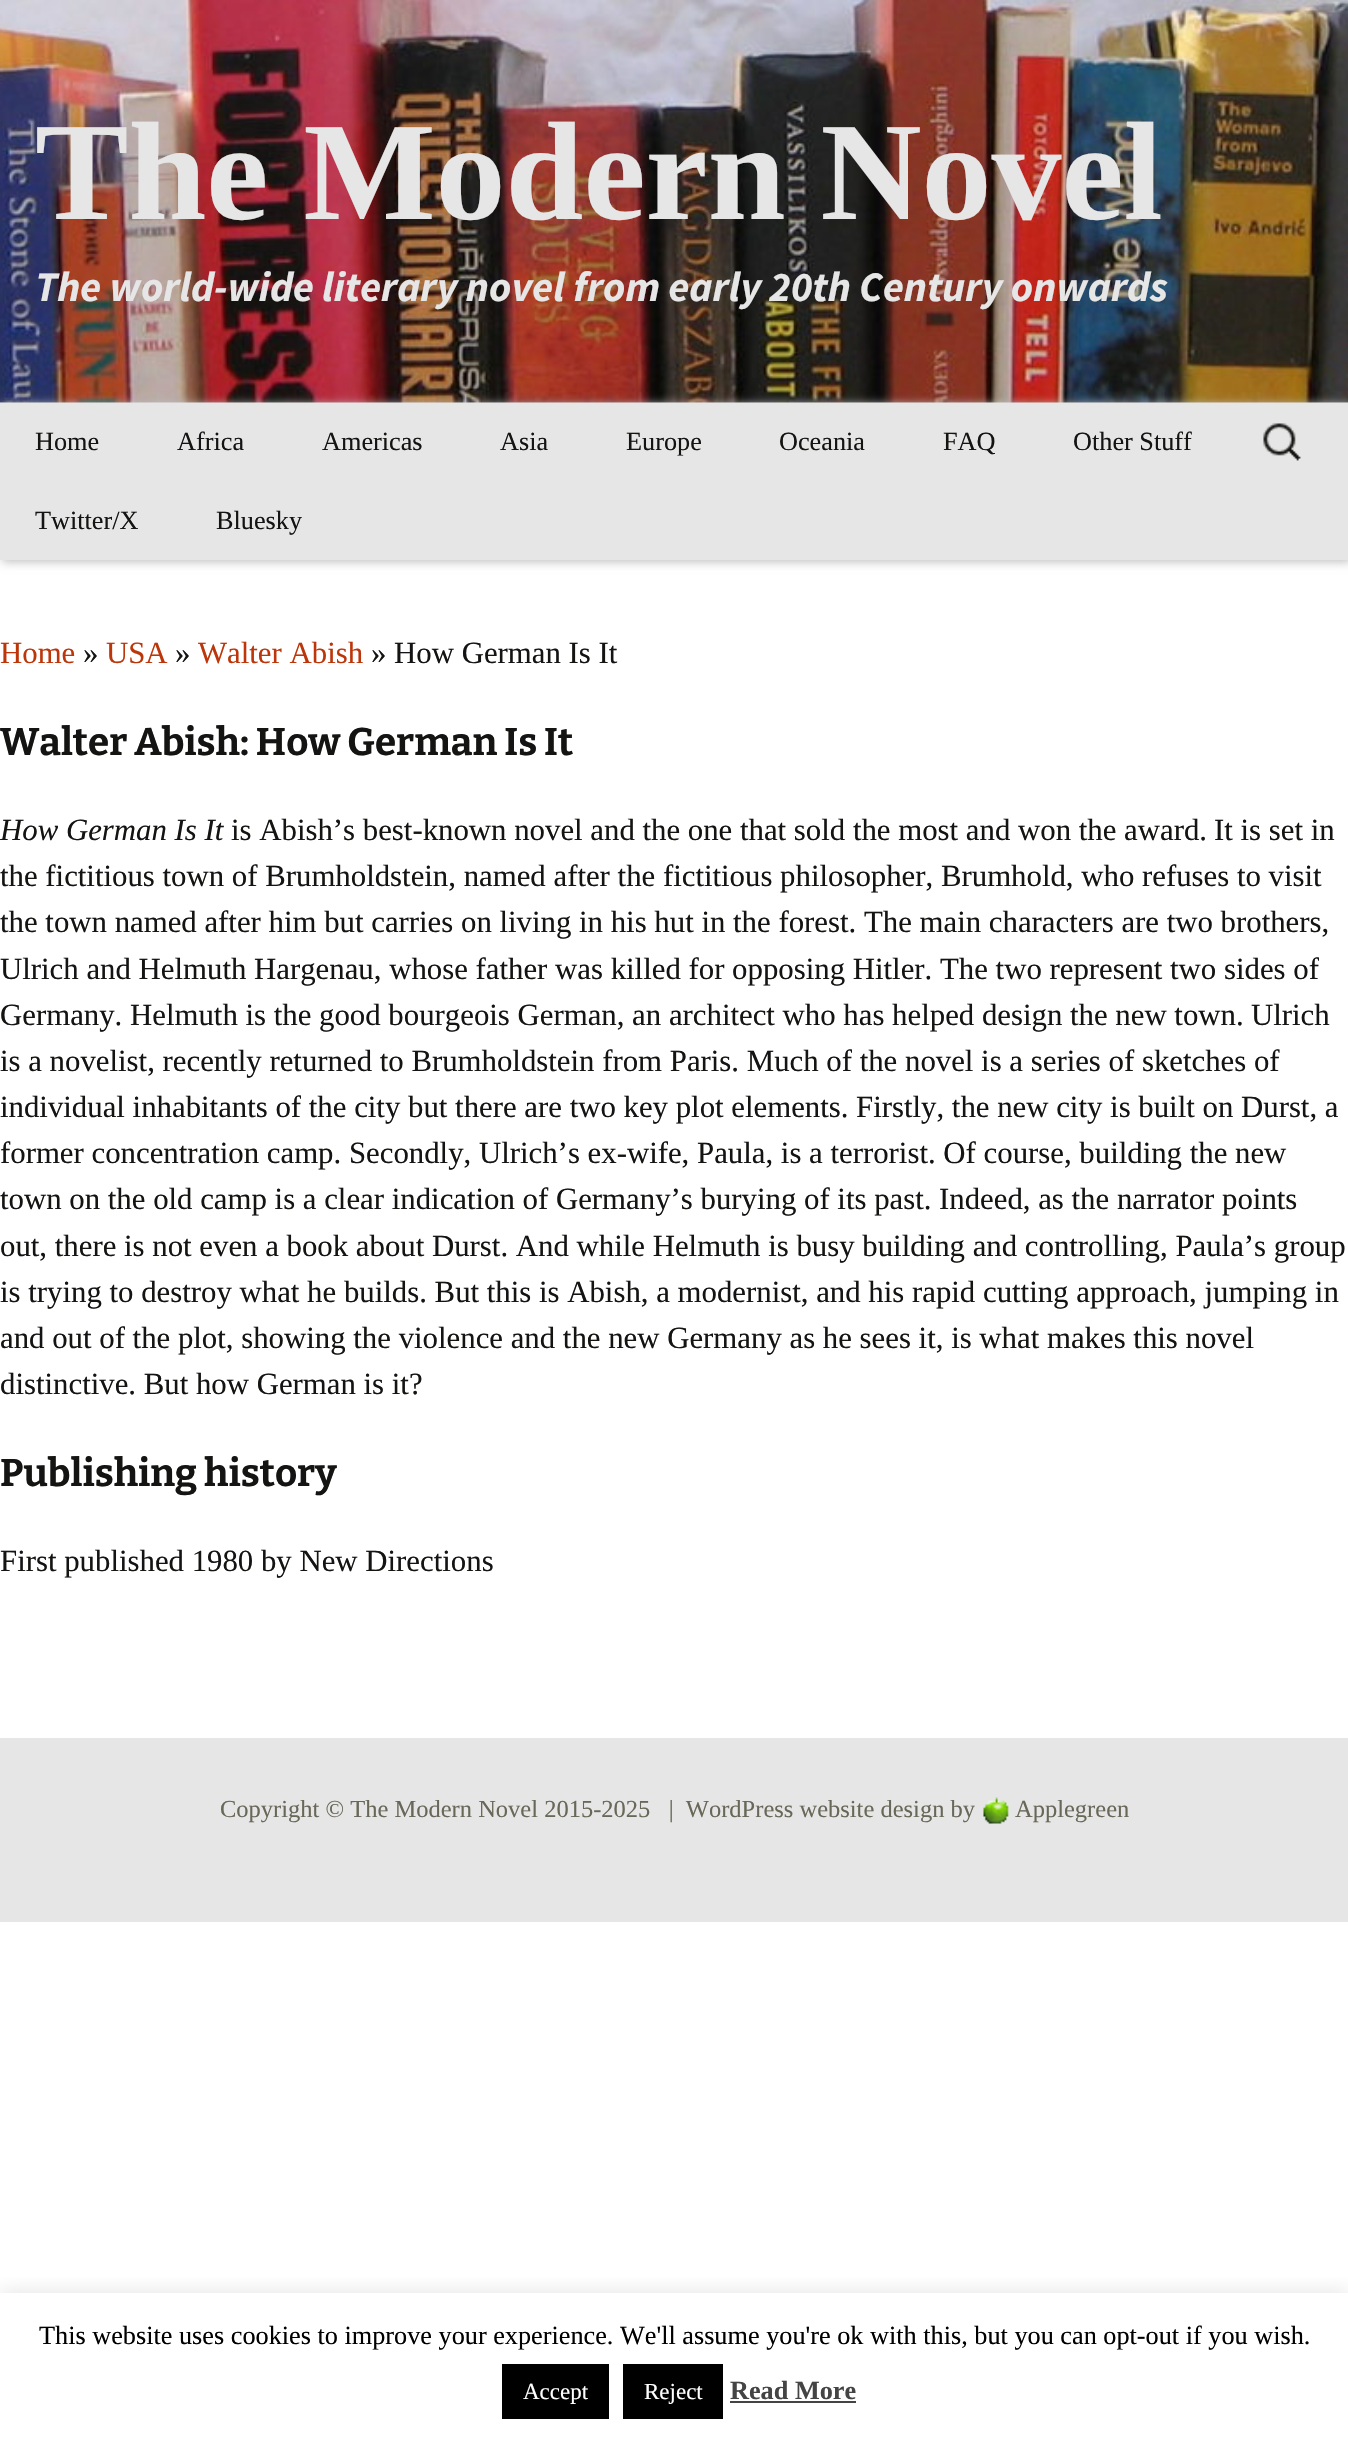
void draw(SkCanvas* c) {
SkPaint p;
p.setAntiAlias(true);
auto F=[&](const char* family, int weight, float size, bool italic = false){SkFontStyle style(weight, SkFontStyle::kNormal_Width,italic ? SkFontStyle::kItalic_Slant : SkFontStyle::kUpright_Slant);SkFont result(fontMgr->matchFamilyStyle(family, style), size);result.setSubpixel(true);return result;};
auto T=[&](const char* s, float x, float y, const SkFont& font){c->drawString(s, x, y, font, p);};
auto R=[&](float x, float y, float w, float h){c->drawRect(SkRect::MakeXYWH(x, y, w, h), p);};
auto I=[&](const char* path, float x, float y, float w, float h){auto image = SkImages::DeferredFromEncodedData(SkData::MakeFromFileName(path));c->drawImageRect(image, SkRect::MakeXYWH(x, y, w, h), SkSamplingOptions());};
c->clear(0xffffffff);
I("1.png",0,0,1348,403);
auto f1 = F("Liberation Serif",700,140);
p.setColor(0xffe6e6e6);
T("The Modern Novel",35,219,f1);
auto f2 = F("Source Sans Pro",700,42,true);
T("The world-wide literary novel from early 20th Century onwards",35,301,f2);
p.setColor(0xffc1c1c1);
p.setMaskFilter(SkMaskFilter::MakeBlur(kNormal_SkBlurStyle, 4.5));
c->drawRect(SkRect::MakeXYWH(2,404,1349,158),p);
p.setMaskFilter(nullptr);
p.setColor(0xffe6e6e6);
R(0,403,1348,157);
auto f3 = F("Liberation Serif",400,26.25);
p.setColor(0xff141412);
T("Home",35,450,f3);
T("Africa",177,450,f3);
T("Americas",322,450,f3);
T("Asia",500,450,f3);
T("Europe",626,450,f3);
T("Oceania",779,450,f3);
T("FAQ",943,450,f3);
T("Other Stuff",1073,450,f3);
T("Twitter/X",35,529,f3);
T("Bluesky",216,529,f3);
I("2.png",1263,423,38,38);
auto f4 = F("Liberation Serif",400,30.8);
p.setColor(0xffbc360a);
T("Home",0,663,f4);
p.setColor(0xff141412);
T("»",83,663,f4);
p.setColor(0xffbc360a);
T("USA",106,663,f4);
p.setColor(0xff141412);
T("»",175,663,f4);
p.setColor(0xffbc360a);
T("Walter Abish",198,663,f4);
p.setColor(0xff141412);
T("» How German Is It",371,663,f4);
auto f5 = F("Bitter",700,38.5);
T("Walter Abish: How German Is It",0,755,f5);
auto f6 = F("Liberation Serif",400,30.8,true);
T("How German Is It",0,840,f6);
T("is Abish’s best-known novel and the one that sold the most and won the award.",231,840,f4);
T("It is set in",1214,840,f4);
T("the fictitious town of Brumholdstein, named after the fictitious philosopher, Brumhold, who refuses to visit",0,886,f4);
T("the town named after him but carries on living in his hut in the forest.",0,932,f4);
T("The main characters are two brothers,",864,932,f4);
T("Ulrich and Helmuth Hargenau, whose father was killed for opposing Hitler.",0,979,f4);
T("The two represent two sides of",940,979,f4);
T("Germany. Helmuth is the good bourgeois German, an architect who has helped design the new town.",0,1025,f4);
T("Ulrich",1251,1025,f4);
T("is a novelist, recently returned to Brumholdstein from Paris. Much of the novel is a series of sketches of",0,1071,f4);
T("individual inhabitants of the city but there are two key plot elements.",0,1117,f4);
T("Firstly, the new city is built on Durst, a",856,1117,f4);
T("former concentration camp. Secondly, Ulrich’s ex-wife, Paula, is a terrorist. Of course, building the new",0,1163,f4);
T("town on the old camp is a clear indication of Germany’s burying of its past.",0,1209,f4);
T("Indeed, as the narrator points",939,1209,f4);
T("out, there is not even a book about Durst. And while Helmuth is busy building and controlling, Paula’s group",0,1256,f4);
T("is trying to destroy what he builds. But this is Abish, a modernist, and his rapid cutting approach, jumping in",0,1302,f4);
T("and out of the plot, showing the violence and the new Germany as he sees it, is what makes this novel",0,1348,f4);
T("distinctive. But how German is it?",0,1394,f4);
T("Publishing history",0,1486,f5);
T("First published 1980 by New Directions",0,1571,f4);
p.setColor(0xffe6e6e6);
R(0,1738,1348,184);
auto f7 = F("Liberation Serif",400,24.5);
p.setColor(0xff686758);
T("Copyright © The Modern Novel 2015-2025   |  WordPress website design by",220,1817,f7);
I("3.png",983,1797,26,27);
T("Applegreen",1015,1817,f7);
c->save();
c->clipRect(SkRect::MakeXYWH(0,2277,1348,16));
p.setColor(0x4dacabab);
p.setMaskFilter(SkMaskFilter::MakeBlur(kNormal_SkBlurStyle, 9));
c->drawRect(SkRect::MakeXYWH(0,2291,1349,147),p);
p.setMaskFilter(nullptr);
c->restore();
p.setColor(0xff000000);
T("This website uses cookies to improve your experience. We'll assume you're ok with this, but you can opt-out if you wish.",39,2344,f3);
R(502,2364,107,55);
auto f8 = F("Liberation Serif",400,23);
p.setColor(0xffffffff);
T("Accept",523,2399,f8);
p.setColor(0xff000000);
R(623,2364,100,55);
p.setColor(0xffffffff);
T("Reject",644,2399,f8);
auto f9 = F("Liberation Serif",700,26.25);
p.setColor(0xff444444);
T("Read More",730,2399,f9);
R(730,2401,126,2);
}
